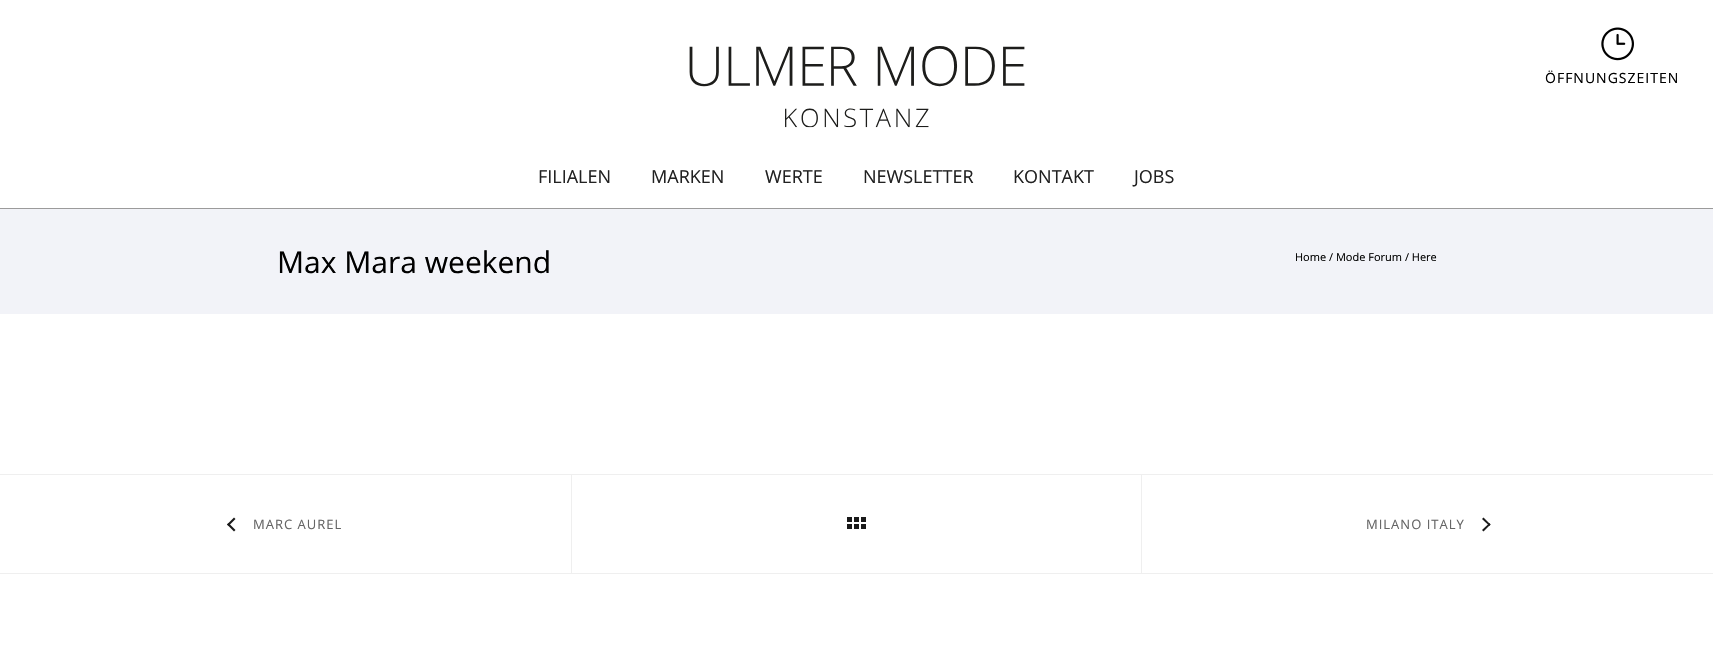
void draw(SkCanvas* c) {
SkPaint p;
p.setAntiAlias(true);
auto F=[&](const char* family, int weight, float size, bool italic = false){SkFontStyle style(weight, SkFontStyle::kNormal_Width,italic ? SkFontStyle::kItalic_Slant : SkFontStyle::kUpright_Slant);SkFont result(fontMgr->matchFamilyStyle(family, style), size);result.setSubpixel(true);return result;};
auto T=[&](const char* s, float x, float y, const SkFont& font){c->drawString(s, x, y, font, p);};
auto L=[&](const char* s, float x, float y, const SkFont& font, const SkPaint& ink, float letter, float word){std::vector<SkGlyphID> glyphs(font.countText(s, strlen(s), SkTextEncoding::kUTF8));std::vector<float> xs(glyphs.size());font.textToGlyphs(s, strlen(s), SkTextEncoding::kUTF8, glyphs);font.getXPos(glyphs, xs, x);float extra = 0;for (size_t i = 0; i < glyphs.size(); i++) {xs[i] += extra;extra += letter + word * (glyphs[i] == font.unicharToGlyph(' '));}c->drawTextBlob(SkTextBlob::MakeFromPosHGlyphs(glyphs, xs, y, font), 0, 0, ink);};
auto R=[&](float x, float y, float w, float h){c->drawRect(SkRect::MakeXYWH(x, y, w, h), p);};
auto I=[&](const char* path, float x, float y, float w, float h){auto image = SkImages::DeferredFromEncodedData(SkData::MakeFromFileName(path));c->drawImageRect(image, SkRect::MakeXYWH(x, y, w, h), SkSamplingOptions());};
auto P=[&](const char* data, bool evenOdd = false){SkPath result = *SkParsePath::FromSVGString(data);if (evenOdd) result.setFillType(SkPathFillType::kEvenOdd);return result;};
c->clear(0xffffffff);
I("1.png",1601,27,33,34);
auto f1 = F("Open Sans",400,14);
p.setColor(0xff000000);
L("ÖFFNUNGSZEITEN",1545,83,f1,p,1,0);
I("2.png",689,46,336,82);
p.setColor(0xff9b9b9b);
R(0,208,1713,1);
auto f2 = F("Open Sans",400,18);
p.setColor(0xff222222);
T("FILIALEN",538,183,f2);
T("MARKEN",651,183,f2);
T("WERTE",765,183,f2);
T("NEWSLETTER",863,183,f2);
T("KONTAKT",1013,183,f2);
T("JOBS",1134,183,f2);
p.setColor(0xfff2f3f8);
R(0,209,1713,105);
auto f3 = F("Open Sans",400,30);
p.setColor(0xff000000);
T("Max Mara weekend",277,273,f3);
auto f4 = F("Open Sans",400,11);
T("Home / Mode Forum / Here",1295,261,f4);
p.setColor(0xffefefef);
R(0,474,1713,1);
R(0,573,1713,1);
p.setColor(0xff1a1a1a);
c->drawPath(P("M228.5 523l7 7l-1.5 1.5l-7-7z"),p);
c->drawPath(P("M227 524.5l7-7l1.5 1.5l-7 7z"),p);
auto f5 = F("Open Sans",400,13);
p.setColor(0xff656565);
L("MARC AUREL",253,529,f5,p,1,0);
p.setColor(0xffefefef);
R(1141,475,1,98);
R(571,475,1,98);
p.setColor(0xff1a1a1a);
R(847,517,5,5);
R(854,517,5,5);
R(861,517,5,5);
R(847,524,5,5);
R(854,524,5,5);
R(861,524,5,5);
p.setColor(0xff656565);
L("MILANO ITALY",1366,529,f5,p,1,0);
p.setColor(0xff1a1a1a);
c->drawPath(P("M1483.5 517.5l7 7l-1 1.5l-7.5-7z"),p);
c->drawPath(P("M1482 530l7.5-7l1 1.5l-7 7z"),p);
}
